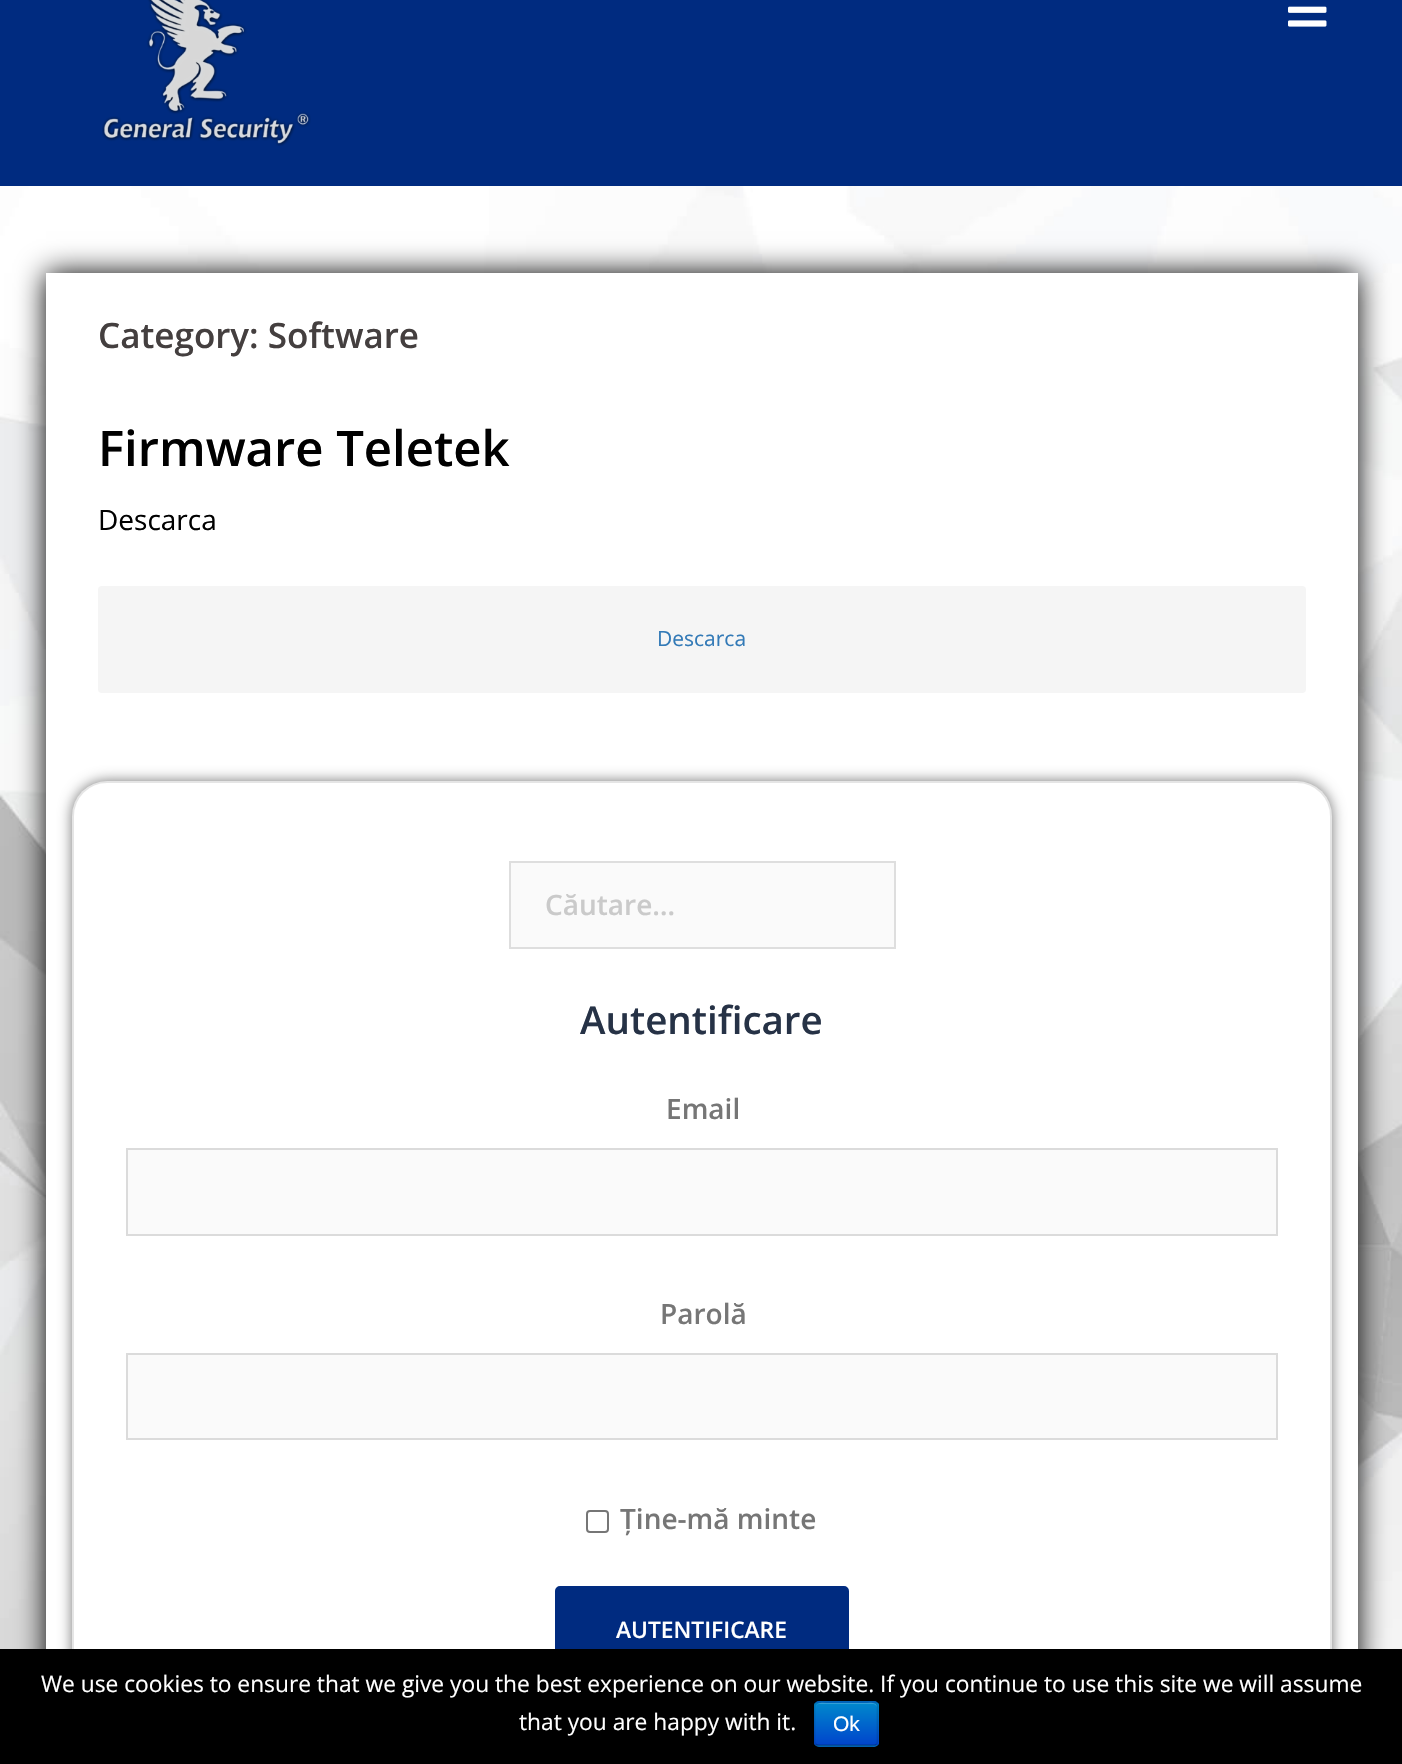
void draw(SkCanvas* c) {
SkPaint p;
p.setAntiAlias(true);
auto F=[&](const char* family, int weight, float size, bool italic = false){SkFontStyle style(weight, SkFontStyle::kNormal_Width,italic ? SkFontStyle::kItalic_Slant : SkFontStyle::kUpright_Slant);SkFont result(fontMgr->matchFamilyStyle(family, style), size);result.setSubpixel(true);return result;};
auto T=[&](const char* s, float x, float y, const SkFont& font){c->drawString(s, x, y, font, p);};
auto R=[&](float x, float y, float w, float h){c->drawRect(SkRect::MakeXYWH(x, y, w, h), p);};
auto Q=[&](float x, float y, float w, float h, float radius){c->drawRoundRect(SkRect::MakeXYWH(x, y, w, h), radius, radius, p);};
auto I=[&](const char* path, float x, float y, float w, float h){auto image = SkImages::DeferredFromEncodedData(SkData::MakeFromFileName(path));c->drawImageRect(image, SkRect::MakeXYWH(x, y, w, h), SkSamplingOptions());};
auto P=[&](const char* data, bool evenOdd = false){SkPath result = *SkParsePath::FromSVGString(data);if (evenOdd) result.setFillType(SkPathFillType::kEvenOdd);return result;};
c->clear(0xffffffff);
I("1.png",0,186,1402,1463);
p.setColor(0xff002b80);
R(0,0,1402,186);
I("2.png",102,0,209,146);
I("3.png",1288,6,39,21);
p.setColor(0xff000000);
p.setMaskFilter(SkMaskFilter::MakeBlur(kNormal_SkBlurStyle, 14));
c->drawRect(SkRect::MakeXYWH(46,273,1312,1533),p);
p.setMaskFilter(nullptr);
p.setColor(0xffffffff);
R(46,273,1312,1376);
auto f1 = F("Open Sans",600,35);
p.setColor(0xff443f3f);
T("Category: Software",98,348,f1);
auto f2 = F("Open Sans",600,49);
p.setColor(0xff000000);
T("Firmware Teletek",98,466,f2);
auto f3 = F("Open Sans",400,28);
T("Descarca",98,530,f3);
p.setColor(0xfff5f5f5);
Q(98,586,1208,107,4);
auto f4 = F("Open Sans",400,21);
p.setColor(0xff337ab7);
T("Descarca",657,646,f4);
p.setColor(0xff767676);
p.setMaskFilter(SkMaskFilter::MakeBlur(kNormal_SkBlurStyle, 7));
c->drawRoundRect(SkRect::MakeXYWH(72,781,1260,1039),35,35,p);
p.setMaskFilter(nullptr);
p.setColor(0xffffffff);
Q(72,781,1260,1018,35);
p.setStroke(true);
p.setStrokeWidth(2);
p.setColor(0x1a000000);
c->drawRoundRect(SkRect::MakeXYWH(73,782,1258,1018),34,34,p);
p.setStroke(false);
p.setColor(0xfffafafa);
c->drawRect(SkRect::MakeXYWH(510,862,385,86),p);
p.setStroke(true);
p.setColor(0xffdedede);
c->drawRect(SkRect::MakeXYWH(510,862,385,86),p);
auto f5 = F("Open Sans",600,28);
p.setStroke(false);
p.setColor(0xffcacaca);
T("Căutare…",545,915,f5);
auto f6 = F("Open Sans",600,38.5);
p.setColor(0xff263246);
T("Autentificare",580,1034,f6);
p.setColor(0xff767676);
T("Email",666,1119,f5);
p.setColor(0xfffafafa);
c->drawRect(SkRect::MakeXYWH(127,1149,1150,86),p);
p.setStroke(true);
p.setColor(0xffdbdbdb);
c->drawRect(SkRect::MakeXYWH(127,1149,1150,86),p);
p.setStroke(false);
p.setColor(0xff767676);
T("Parolă",660,1324,f5);
p.setColor(0xfffafafa);
c->drawRect(SkRect::MakeXYWH(127,1354,1150,85),p);
p.setStroke(true);
p.setColor(0xffdbdbdb);
c->drawRect(SkRect::MakeXYWH(127,1354,1150,85),p);
p.setColor(0xff767676);
c->drawRoundRect(SkRect::MakeXYWH(587,1511,21,21),3,3,p);
p.setStroke(false);
T("Ține-mă minte",620,1529,f5);
p.setColor(0xff002b80);
c->drawRoundRect(SkRect::MakeXYWH(556,1587,292,85),4,4,p);
p.setStroke(true);
c->drawRoundRect(SkRect::MakeXYWH(556,1587,292,85),4,4,p);
auto f7 = F("Open Sans",600,22.75);
p.setStroke(false);
p.setColor(0xffffffff);
T("AUTENTIFICARE",616,1638,f7);
p.setColor(0xff000000);
R(0,1649,1402,115);
auto f8 = F("Open Sans",400,22.75);
p.setColor(0xffffffff);
T("We use cookies to ensure that we give you the best experience on our website. If you continue to use this site we will assume",41,1692,f8);
T("that you are happy with it.",519,1730,f8);
p.setColor(0xff006dcc);
Q(814,1701,65,46,5);
c->save();
c->clipPath(P("M819 1701h55c3 0 5 2 5 5v36c0 3-2 5-5 5h-55c-3 0-5-2-5-5v-36c0-3 2-5 5-5z"),true);
{
const SkColor colors[] = {0xff0088cc,0xff0044cc};
const float stops[] = {0,1};
const SkPoint ends[] = {{846,1703}, {846,1745}};
p.setShader(SkGradientShader::MakeLinear(ends, colors, stops, 2, SkTileMode::kClamp));
p.setAlpha(255);
}
R(814,1703,65,42);
c->restore();
p.setShader(nullptr);
p.setColor(0xff339fd6);
c->drawPath(P("M819 1704h54c2 0 4 2 4 4c0-7-8-5-13-5h-35c-5 0-13-2-13 5c0-2 1-4 3-4z"),p);
p.setStroke(true);
p.setStrokeWidth(1.8);
p.setColor(0x40000000);
c->drawPath(P("M876.5 1744.5c-1 .5-2 1-3.5 1h-54c-1 0-2.5-.5-3-1"),p);
p.setColor(0x1a000000);
c->drawPath(P("M816 1744.5c-1-1-1.5-2-1.5-3.5v-35c0-1 .5-2 1.5-3c.5-.5 2-1 3-1h54c1.5 0 2.5 .5 3.5 1c.5 1 1 2 1 3v35c0 1.5-.5 2.5-1 3.5"),p);
auto f9 = F("Liberation Sans",400,21);
p.setStroke(false);
p.setColor(0xffffffff);
T("Ok",833,1731,f9);
}
